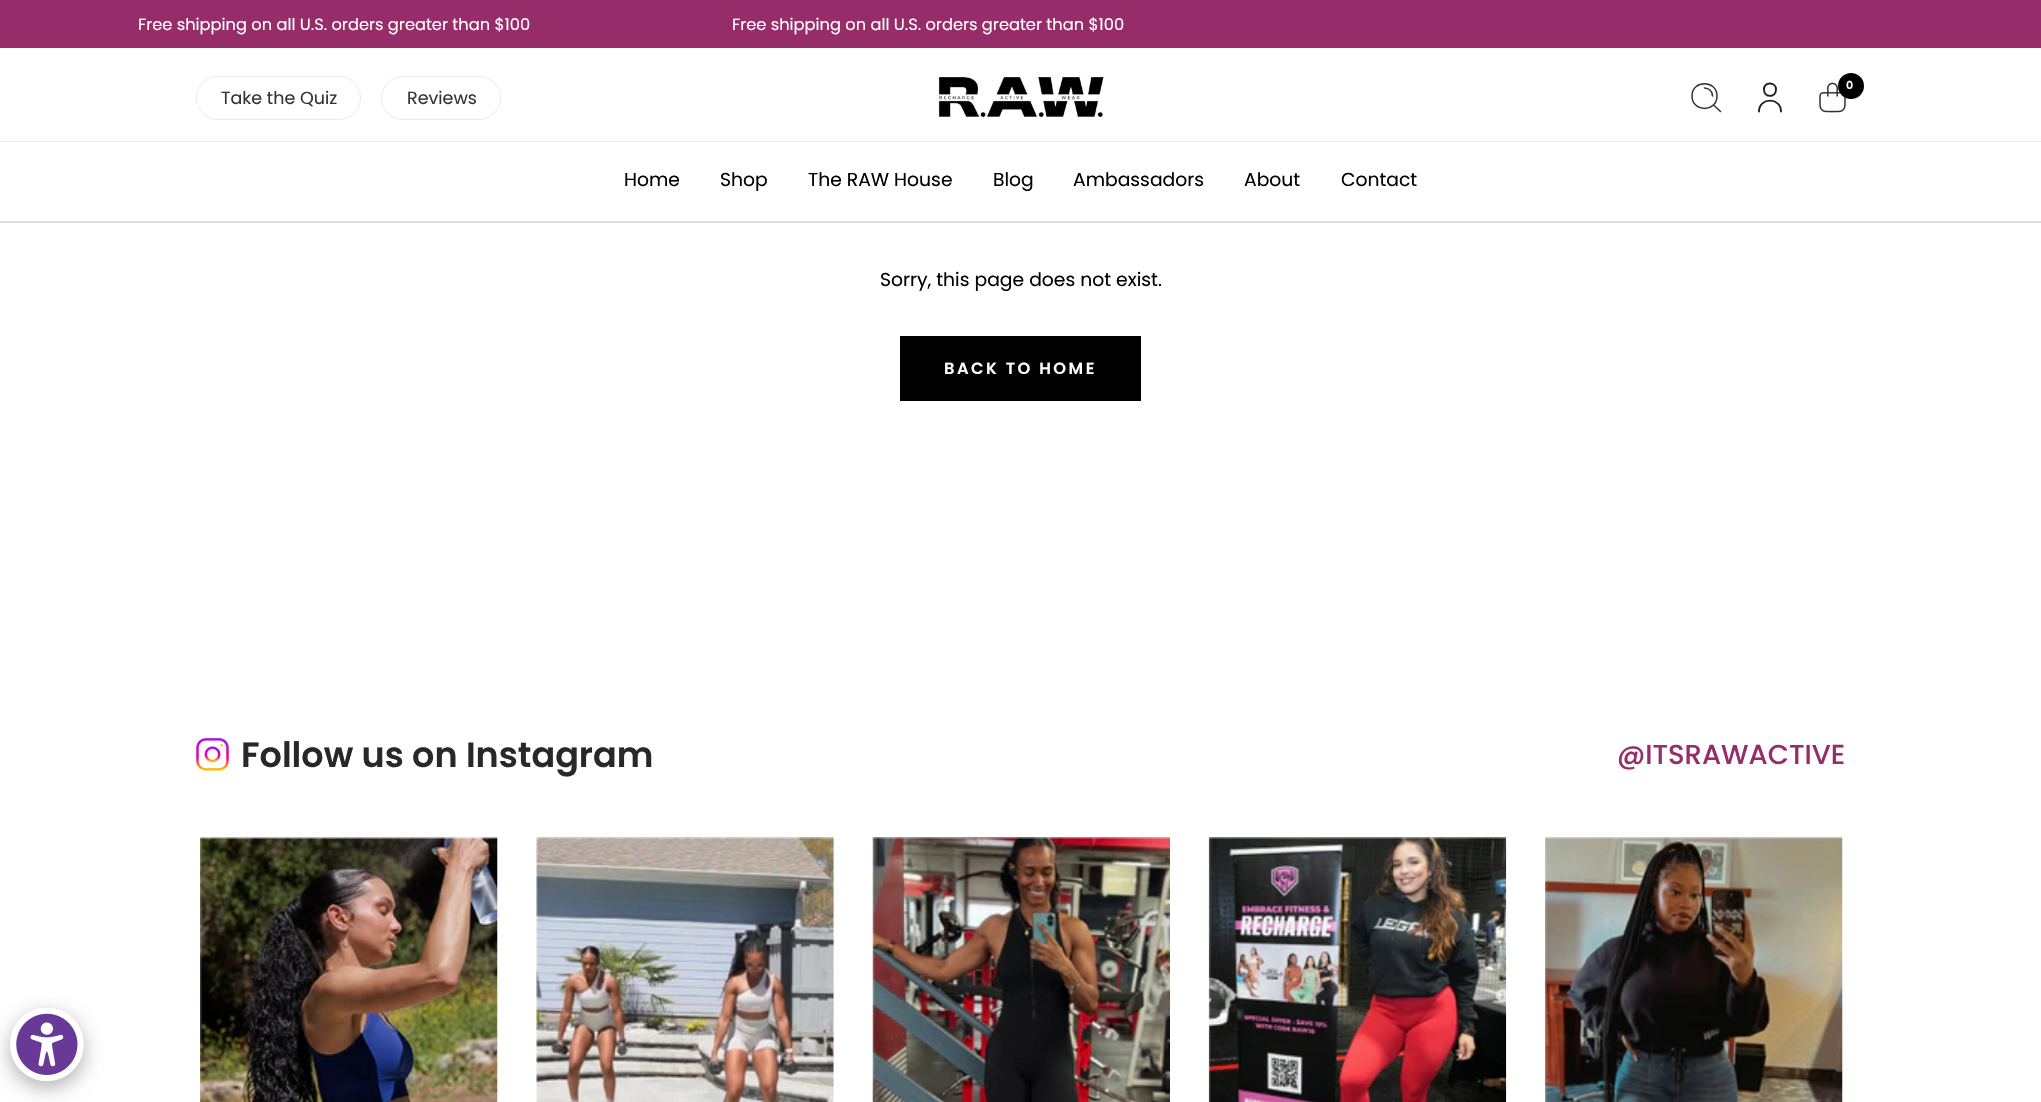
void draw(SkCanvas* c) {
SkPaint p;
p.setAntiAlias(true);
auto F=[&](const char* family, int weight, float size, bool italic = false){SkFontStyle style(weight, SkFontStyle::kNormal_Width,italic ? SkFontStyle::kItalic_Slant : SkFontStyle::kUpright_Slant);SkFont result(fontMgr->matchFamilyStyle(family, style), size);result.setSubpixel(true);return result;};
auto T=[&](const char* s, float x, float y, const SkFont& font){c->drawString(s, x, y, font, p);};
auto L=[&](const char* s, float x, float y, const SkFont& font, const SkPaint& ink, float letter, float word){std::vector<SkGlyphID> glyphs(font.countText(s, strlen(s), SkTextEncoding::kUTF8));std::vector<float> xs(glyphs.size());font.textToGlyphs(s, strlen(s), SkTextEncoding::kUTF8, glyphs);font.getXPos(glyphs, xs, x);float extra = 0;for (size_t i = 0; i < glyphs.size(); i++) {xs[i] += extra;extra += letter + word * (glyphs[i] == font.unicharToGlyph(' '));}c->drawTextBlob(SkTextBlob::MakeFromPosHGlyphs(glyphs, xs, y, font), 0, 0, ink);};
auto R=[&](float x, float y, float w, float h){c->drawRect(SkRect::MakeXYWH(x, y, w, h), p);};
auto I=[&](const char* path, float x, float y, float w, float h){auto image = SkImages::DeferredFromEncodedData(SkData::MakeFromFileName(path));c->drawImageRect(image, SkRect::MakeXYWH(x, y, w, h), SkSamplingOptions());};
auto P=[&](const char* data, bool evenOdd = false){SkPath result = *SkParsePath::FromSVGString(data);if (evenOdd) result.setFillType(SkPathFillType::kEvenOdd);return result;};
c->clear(0xffffffff);
p.setColor(0xff962d6a);
R(0,0,2041,48);
auto f1 = F("Poppins",400,16.25);
p.setColor(0xffffffff);
T("Free shipping on all U.S. orders greater than $100",138,30,f1);
T("Free shipping on all U.S. orders greater than $100",732,30,f1);
p.setColor(0xffdfdfdf);
R(0,221,2041,2);
I("1.png",938,77,166,40);
p.setStroke(true);
p.setStrokeWidth(1.5);
p.setStrokeCap(SkPaint::kRound_Cap);
p.setStrokeJoin(SkPaint::kRound_Join);
p.setColor(0xff333333);
c->drawPath(P("M1704.5 88c4.5 0 8 3.5 8 8m1 9l7 6.5m-3.5-15.5c0 16.5-25 16.5-25 0c0-16.5 25-16.5 25 0z"),p);
p.setStrokeWidth(1.9);
p.setColor(0xff1d1d1d);
c->drawPath(P("M1759 111.5c0-14.5 22-14.5 22 0m-5-22c0 8.5-12 8.5-12 0c-.5-8 12-8 12 0z"),p);
I("2.png",1819,82,27,31);
p.setStroke(false);
p.setColor(0xff000000);
c->drawCircle(1851,86,13,p);
auto f2 = F("Poppins",600,11);
p.setColor(0xffffffff);
T("0",1846,89,f2);
p.setStroke(true);
p.setStrokeWidth(1);
p.setStrokeCap(SkPaint::kButt_Cap);
p.setStrokeJoin(SkPaint::kMiter_Join);
p.setColor(0xffebebeb);
c->drawRoundRect(SkRect::MakeXYWH(196.5,76.5,164,43),21.5,21.5,p);
auto f3 = F("Poppins",400,17.5);
p.setStroke(false);
p.setColor(0xff333333);
T("Take the Quiz",221,104,f3);
p.setStroke(true);
p.setColor(0xffebebeb);
c->drawRoundRect(SkRect::MakeXYWH(381.5,76.5,119,43),21.5,21.5,p);
p.setStroke(false);
p.setColor(0xff333333);
T("Reviews",407,104,f3);
p.setColor(0xffebebeb);
R(0,141,2041,1);
auto f4 = F("Poppins",400,18.75);
p.setColor(0xff000000);
T("Home",624,186,f4);
T("Shop",720,186,f4);
T("The RAW House",808,186,f4);
T("Blog",993,186,f4);
T("Ambassadors",1073,186,f4);
T("About",1244,186,f4);
T("Contact",1341,186,f4);
T("Sorry, this page does not exist.",880,286,f4);
R(900,336,241,65);
auto f5 = F("Poppins",600,16.25);
p.setColor(0xffffffff);
L("BACK TO HOME",944,374,f5,p,2.5,0);
I("3.png",196,738,33,33);
auto f6 = F("Poppins",600,35);
p.setColor(0xff282828);
T("Follow us on Instagram",241,767,f6);
auto f7 = F("Poppins",500,27.5);
p.setColor(0xff962d6a);
T("@ITSRAWACTIVE",1617,764,f7);
I("4.png",200,837,298,265);
I("5.png",536,837,298,265);
I("6.png",872,837,298,265);
I("7.png",1208,837,299,265);
I("8.png",1545,837,298,265);
p.setColor(0x4d000000);
p.setMaskFilter(SkMaskFilter::MakeBlur(kNormal_SkBlurStyle, 9.5));
c->drawRoundRect(SkRect::MakeXYWH(10,1014,74,74),37,37,p);
p.setMaskFilter(nullptr);
I("9.png",10,1008,74,73);
}
